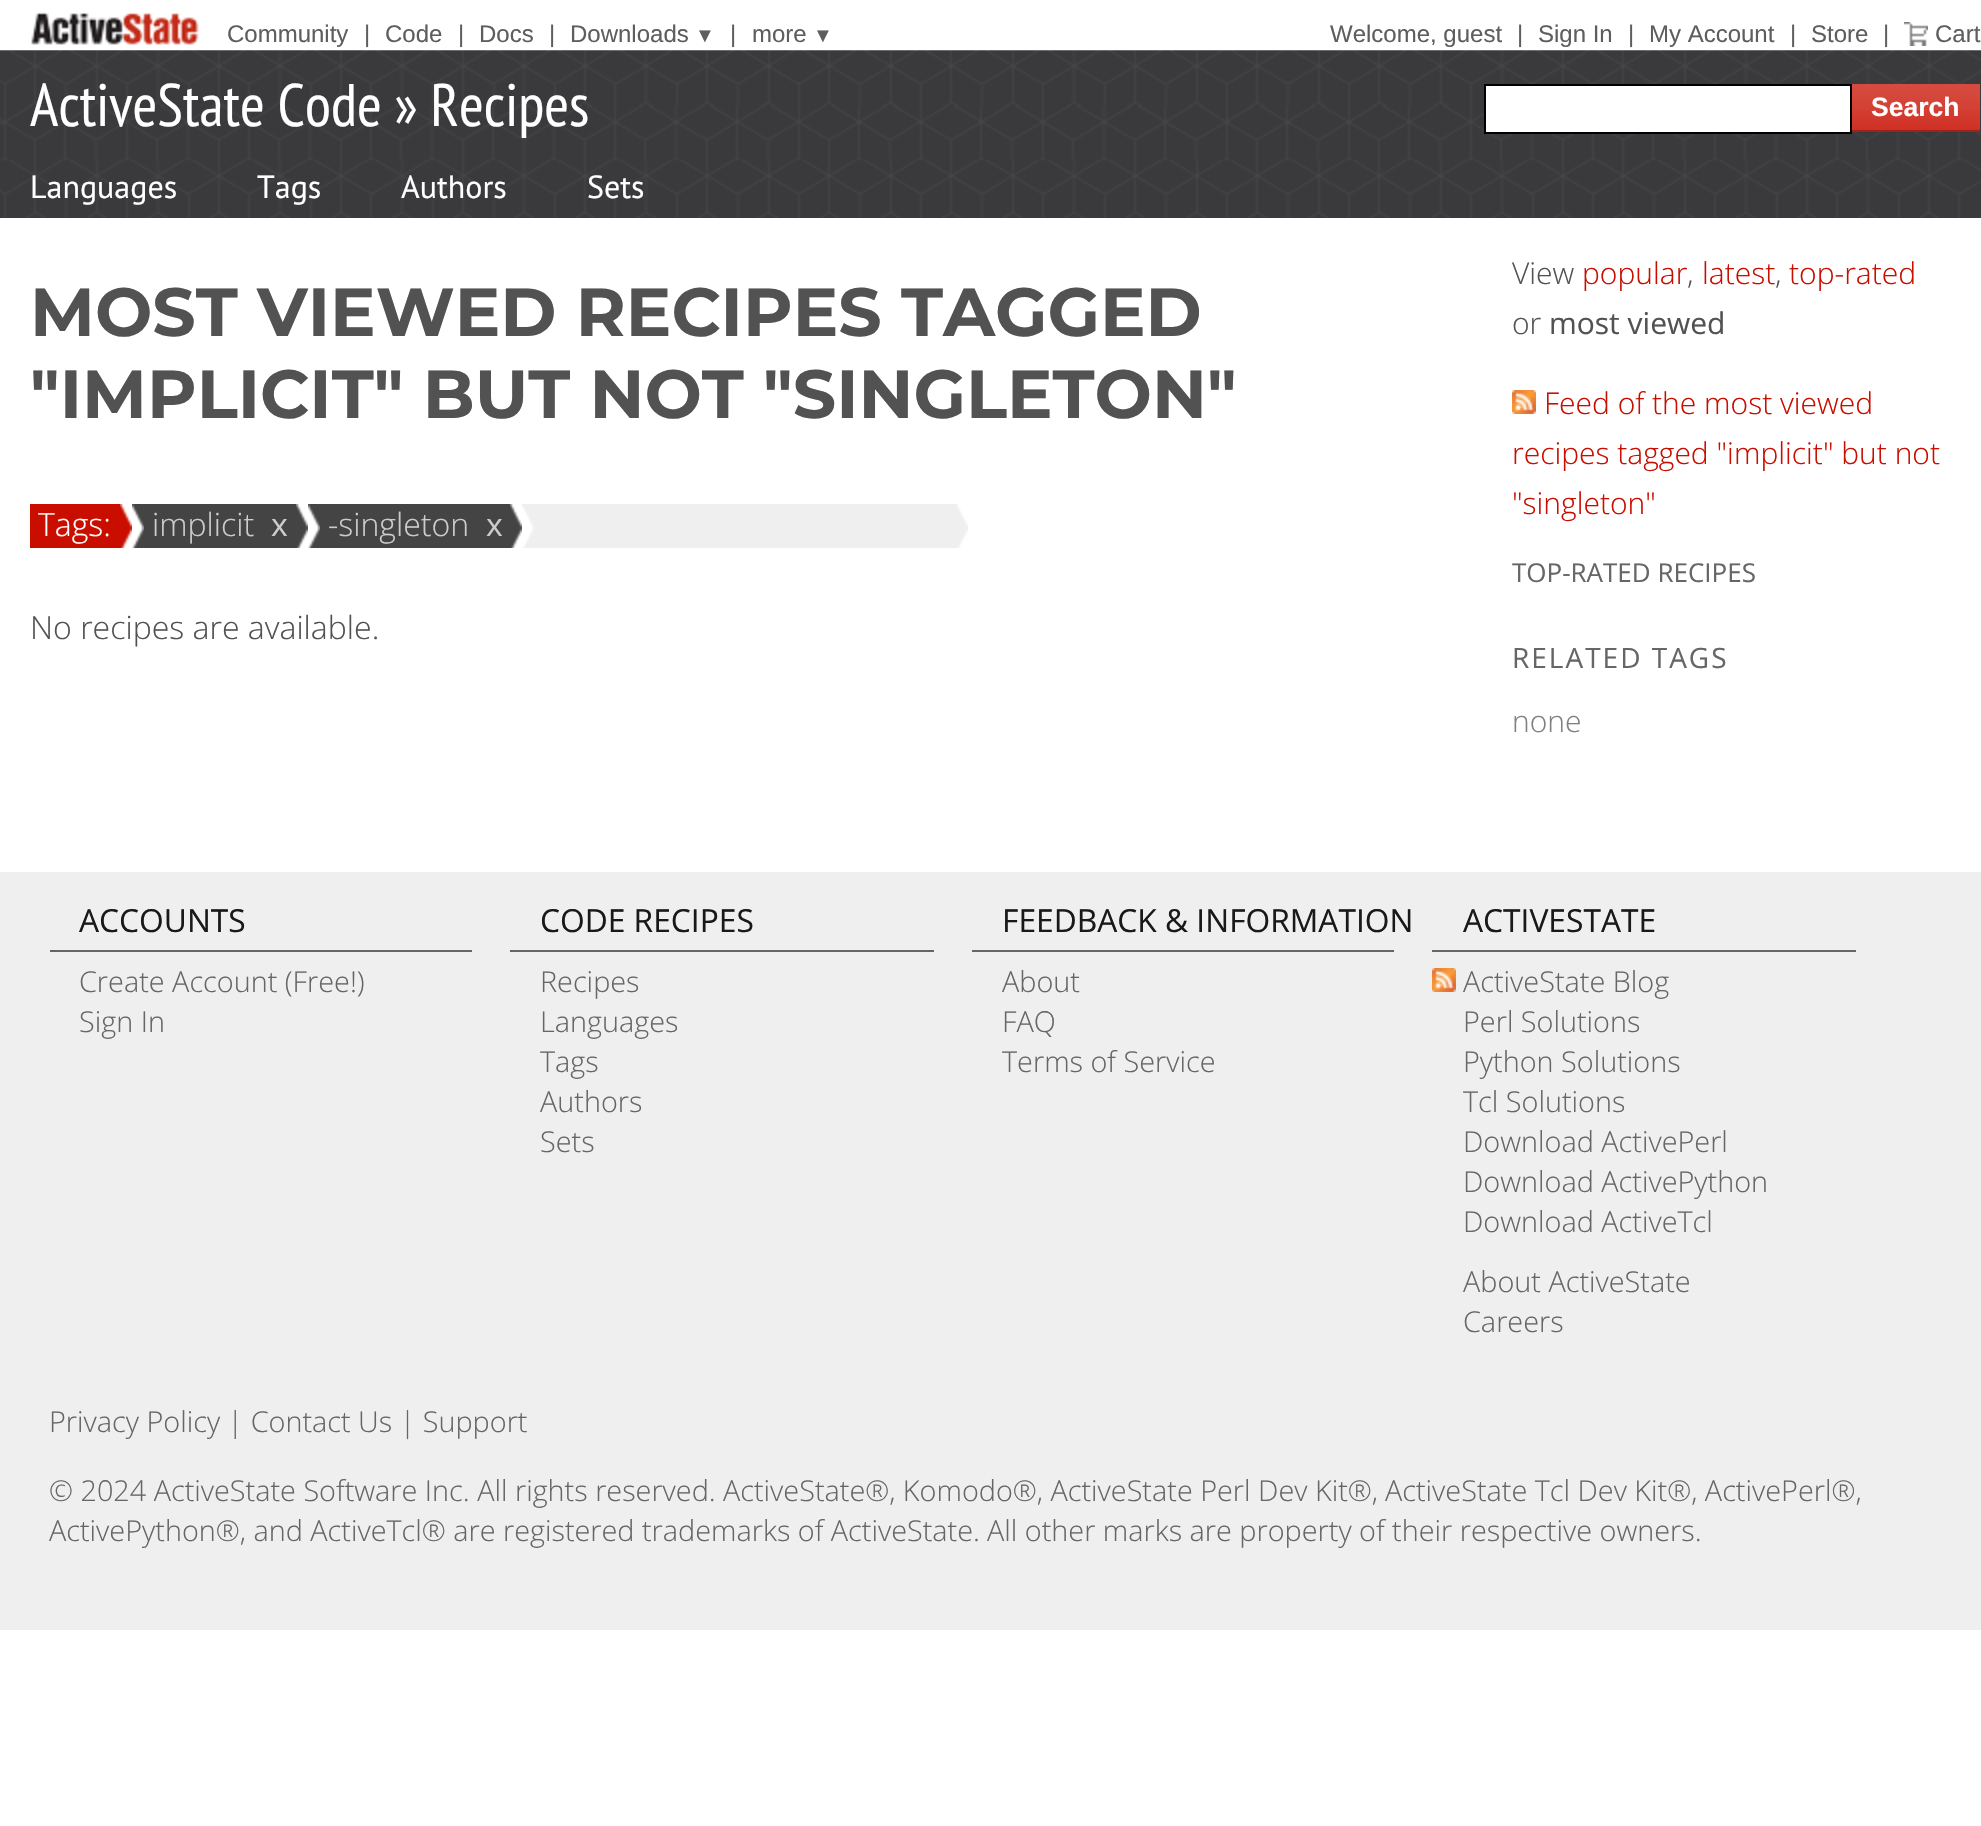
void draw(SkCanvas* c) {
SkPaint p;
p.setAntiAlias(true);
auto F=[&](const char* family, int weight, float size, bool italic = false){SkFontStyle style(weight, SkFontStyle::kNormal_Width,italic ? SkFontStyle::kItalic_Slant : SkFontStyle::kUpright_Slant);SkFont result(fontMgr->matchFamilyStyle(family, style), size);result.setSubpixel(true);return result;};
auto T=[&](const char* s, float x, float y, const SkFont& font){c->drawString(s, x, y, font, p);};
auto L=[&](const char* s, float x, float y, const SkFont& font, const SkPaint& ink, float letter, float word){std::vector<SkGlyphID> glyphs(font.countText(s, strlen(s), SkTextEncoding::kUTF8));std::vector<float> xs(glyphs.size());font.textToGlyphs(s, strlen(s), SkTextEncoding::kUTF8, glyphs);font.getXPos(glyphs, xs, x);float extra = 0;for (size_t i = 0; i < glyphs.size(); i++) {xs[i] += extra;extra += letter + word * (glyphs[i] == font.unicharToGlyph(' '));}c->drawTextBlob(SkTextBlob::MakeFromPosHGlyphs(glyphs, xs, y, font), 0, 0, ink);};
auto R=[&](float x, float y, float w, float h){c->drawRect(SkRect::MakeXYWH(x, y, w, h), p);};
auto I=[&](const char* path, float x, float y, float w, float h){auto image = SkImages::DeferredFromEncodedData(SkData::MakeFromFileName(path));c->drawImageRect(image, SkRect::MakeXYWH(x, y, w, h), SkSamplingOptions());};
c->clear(0xffffffff);
I("1.png",0,50,1981,168);
I("2.png",31,12,168,33);
auto f1 = F("Liberation Sans",400,24);
p.setColor(0xff5e5e5e);
T("Community",227,42,f1);
T("|",364,42,f1);
T("Code",385,42,f1);
T("|",458,42,f1);
T("Docs",479,42,f1);
T("|",549,42,f1);
T("Downloads",570,42,f1);
auto f2 = F("Liberation Sans",400,20);
T("▼",695,42,f2);
T("|",730,42,f1);
T("more",752,42,f1);
T("▼",813,42,f2);
T("Welcome, guest",1330,42,f1);
T("|",1517,42,f1);
T("Sign In",1538,42,f1);
T("|",1628,42,f1);
T("My Account",1649,42,f1);
T("|",1790,42,f1);
T("Store",1811,42,f1);
T("|",1883,42,f1);
I("3.png",1904,22,24,24);
T("Cart",1935,42,f1);
auto f3 = F("PT Sans Narrow",400,60);
p.setColor(0xffffffff);
T("ActiveState Code » Recipes",30,126,f3);
c->drawRect(SkRect::MakeXYWH(1485,85,366,48),p);
p.setStroke(true);
p.setStrokeWidth(2);
p.setColor(0xff000000);
c->drawRect(SkRect::MakeXYWH(1485,85,366,48),p);
p.setStroke(false);
p.setColor(0xffc90e00);
R(1852,84,128,46);
I("4.png",1852,84,128,46);
p.setColor(0xff9c231a);
R(1852,130,128,2);
auto f4 = F("Liberation Sans",700,26.5);
p.setColor(0xffffffff);
T("Search",1871,116,f4);
auto f5 = F("PT Sans",400,32);
T("Languages",30,198,f5);
T("Tags",257,198,f5);
T("Authors",401,198,f5);
T("Sets",587,198,f5);
auto f6 = F("Montserrat",700,68);
p.setColor(0xff525252);
T("MOST VIEWED RECIPES TAGGED",30,336,f6);
T("\"IMPLICIT\" BUT NOT \"SINGLETON\"",30,418,f6);
p.setColor(0xffc90e00);
R(30,504,102,44);
auto f7 = F("Open Sans",300,32);
p.setColor(0xffffffff);
T("Tags:",38,536,f7);
I("5.png",120,504,12,44);
p.setColor(0xff444444);
R(132,504,390,44);
I("6.png",132,504,12,44);
p.setColor(0xffcccccc);
T("implicit",152,536,f7);
auto f8 = F("Open Sans",400,32);
T("x",271,536,f8);
I("7.png",296,504,12,44);
I("6.png",308,504,12,44);
T("-singleton",328,536,f7);
T("x",486,536,f8);
I("7.png",510,504,12,44);
p.setColor(0xffefefef);
R(522,504,446,44);
I("8.png",522,506,12,42);
I("9.png",956,504,12,44);
p.setColor(0xff525252);
T("No recipes are available.",30,639,f7);
auto f9 = F("Open Sans",300,30);
T("View",1512,284,f9);
p.setColor(0xffc90e00);
T("popular",1582,284,f9);
p.setColor(0xff525252);
T(",",1687,284,f9);
p.setColor(0xffc90e00);
T("latest",1702,284,f9);
p.setColor(0xff525252);
T(",",1775,284,f9);
p.setColor(0xffc90e00);
T("top-rated",1789,284,f9);
p.setColor(0xff525252);
T("or",1512,334,f9);
auto f10 = F("Open Sans",400,30);
T("most viewed",1549,334,f10);
I("10.png",1512,390,24,24);
p.setColor(0xffc90e00);
T("Feed of the most viewed",1544,414,f9);
T("recipes tagged \"implicit\" but not",1512,464,f9);
T("\"singleton\"",1512,514,f9);
auto f11 = F("Open Sans",400,26);
p.setColor(0xff666666);
T("TOP-RATED RECIPES",1512,582,f11);
auto f12 = F("Open Sans",400,28);
L("RELATED TAGS",1512,668,f12,p,2,0);
p.setColor(0xff808080);
T("none",1512,732,f9);
p.setColor(0xffefefef);
R(0,872,1981,758);
p.setColor(0xff666666);
R(50,950,422,2);
auto f13 = F("Open Sans",400,31.75);
p.setColor(0xff191919);
T("ACCOUNTS",79,932,f13);
auto f14 = F("Open Sans",300,28.8);
p.setColor(0xff666666);
T("Create Account (Free!)",79,992,f14);
T("Sign In",79,1032,f14);
R(510,950,424,2);
p.setColor(0xff191919);
T("CODE RECIPES",540,932,f13);
p.setColor(0xff666666);
T("Recipes",540,992,f14);
T("Languages",540,1032,f14);
T("Tags",540,1072,f14);
T("Authors",540,1112,f14);
T("Sets",540,1152,f14);
R(972,950,422,2);
p.setColor(0xff191919);
T("FEEDBACK & INFORMATION",1002,932,f13);
p.setColor(0xff666666);
T("About",1002,992,f14);
T("FAQ",1002,1032,f14);
T("Terms of Service",1002,1072,f14);
R(1432,950,424,2);
p.setColor(0xff191919);
T("ACTIVESTATE",1463,932,f13);
I("11.png",1432,968,24,24);
p.setColor(0xff666666);
T("ActiveState Blog",1463,992,f14);
T("Perl Solutions",1463,1032,f14);
T("Python Solutions",1463,1072,f14);
T("Tcl Solutions",1463,1112,f14);
T("Download ActivePerl",1463,1152,f14);
T("Download ActivePython",1463,1192,f14);
T("Download ActiveTcl",1463,1232,f14);
T("About ActiveState",1463,1292,f14);
T("Careers",1463,1332,f14);
T("Privacy Policy | Contact Us | Support",49,1432,f14);
T("© 2024 ActiveState Software Inc. All rights reserved.",49,1501,f14);
T("ActiveState®, Komodo®, ActiveState Perl Dev Kit®,",723,1501,f14);
T("ActiveState Tcl Dev Kit®, ActivePerl®,",1385,1501,f14);
T("ActivePython®, and ActiveTcl® are registered trademarks of ActiveState.",49,1541,f14);
T("All other marks are property of their respective owners.",987,1541,f14);
}
